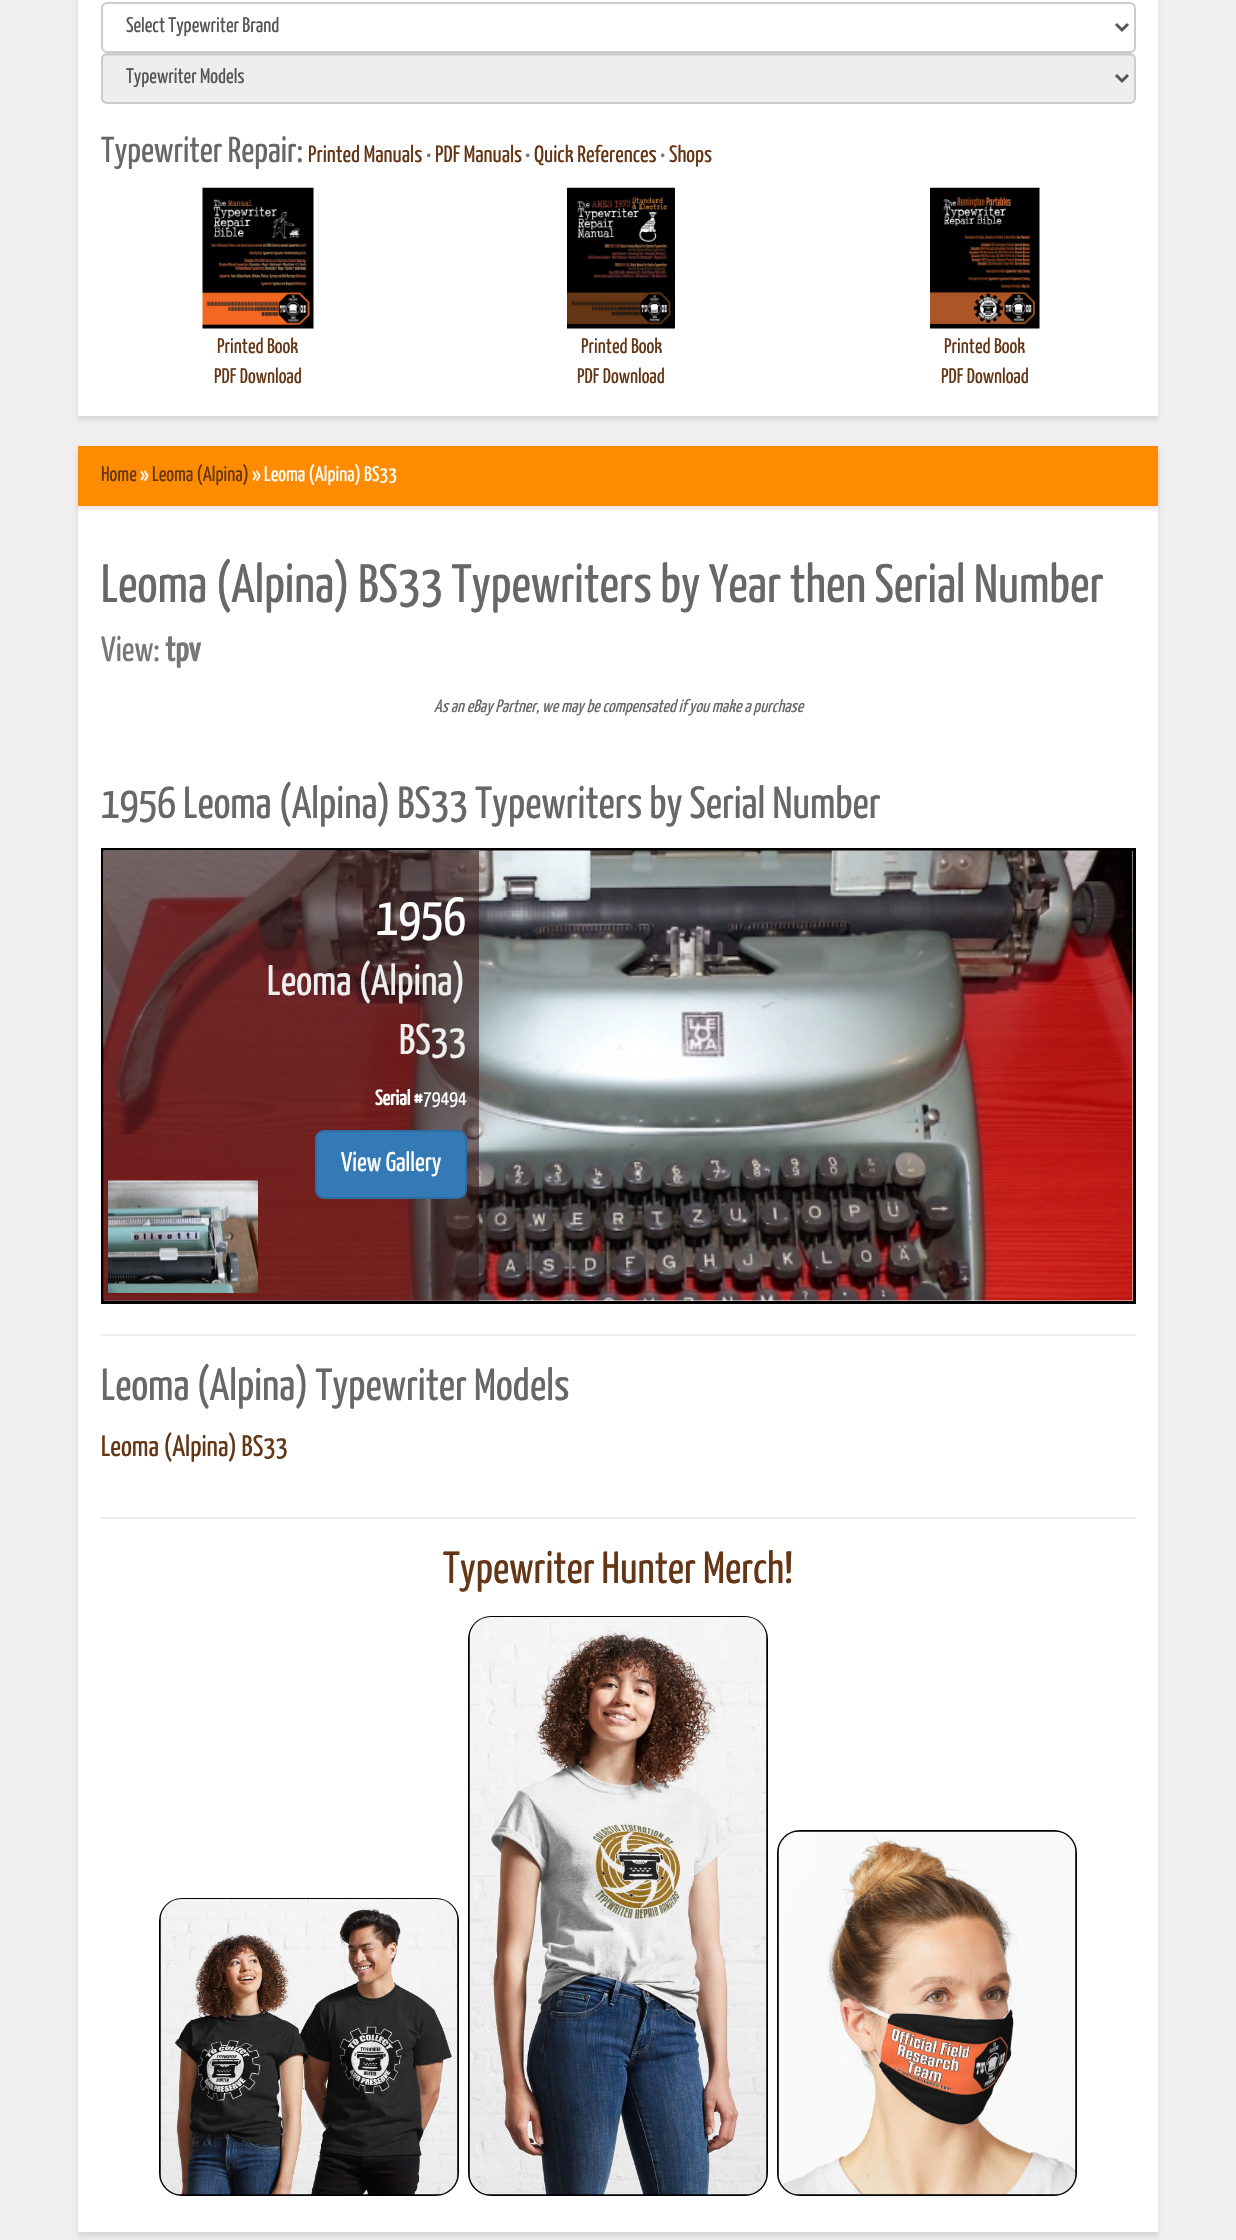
void draw(SkCanvas* c) {
SkPaint p;
p.setAntiAlias(true);
auto F=[&](const char* family, int weight, float size, bool italic = false){SkFontStyle style(weight, SkFontStyle::kNormal_Width,italic ? SkFontStyle::kItalic_Slant : SkFontStyle::kUpright_Slant);SkFont result(fontMgr->matchFamilyStyle(family, style), size);result.setSubpixel(true);return result;};
auto T=[&](const char* s, float x, float y, const SkFont& font){c->drawString(s, x, y, font, p);};
auto R=[&](float x, float y, float w, float h){c->drawRect(SkRect::MakeXYWH(x, y, w, h), p);};
auto Q=[&](float x, float y, float w, float h, float radius){c->drawRoundRect(SkRect::MakeXYWH(x, y, w, h), radius, radius, p);};
auto I=[&](const char* path, float x, float y, float w, float h){auto image = SkImages::DeferredFromEncodedData(SkData::MakeFromFileName(path));c->drawImageRect(image, SkRect::MakeXYWH(x, y, w, h), SkSamplingOptions());};
auto P=[&](const char* data, bool evenOdd = false){SkPath result = *SkParsePath::FromSVGString(data);if (evenOdd) result.setFillType(SkPathFillType::kEvenOdd);return result;};
c->clear(0xffefefef);
p.setColor(0x17000000);
p.setMaskFilter(SkMaskFilter::MakeBlur(kNormal_SkBlurStyle, 2));
c->drawRect(SkRect::MakeXYWH(78,-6,1080,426),p);
p.setMaskFilter(nullptr);
p.setColor(0xffffffff);
R(78,0,1080,416);
p.setColor(0xffececec);
c->drawPath(P("M106 4h1024c2 0 4 3 4 5c0-3-2-6-5-6h-1022c-3 0-5 3-5 6c0-2 2-5 4-5z"),p);
p.setStroke(true);
p.setStrokeWidth(2);
p.setColor(0xffcccccc);
c->drawRoundRect(SkRect::MakeXYWH(102,3,1033,49),5,5,p);
p.setStrokeWidth(3);
p.setColor(0xff555555);
c->drawPath(P("M1116 24l6 6l6-6"),p);
c->save();
c->clipRect(SkRect::MakeXYWH(126,17,966,22));
auto f1 = F("Yanone Kaffeesatz",400,21);
p.setStroke(false);
T("Select Typewriter Brand",126,32,f1);
c->restore();
p.setColor(0xffeeeeee);
Q(101,53,1035,51,6);
p.setColor(0xffdcdcdc);
c->drawPath(P("M106 56h1024c2 0 4 2 4 4c0-3-2-6-5-6h-1022c-3 0-5 3-5 6c0-2 2-4 4-4z"),p);
p.setStroke(true);
p.setStrokeWidth(2);
p.setColor(0xffcccccc);
c->drawRoundRect(SkRect::MakeXYWH(102,54,1033,49),5,5,p);
p.setStrokeWidth(3);
p.setColor(0xff555555);
c->drawPath(P("M1116 75l6 6l6-6"),p);
c->save();
c->clipRect(SkRect::MakeXYWH(126,68,966,22));
p.setStroke(false);
T("Typewriter Models",126,83,f1);
c->restore();
auto f2 = F("Yanone Kaffeesatz",400,36);
p.setColor(0xff676767);
T("Typewriter Repair:",101,162,f2);
auto f3 = F("Yanone Kaffeesatz",400,23.5);
p.setColor(0xff643615);
T("Printed Manuals",308,162,f3);
p.setColor(0xff777777);
T("•",426,162,f3);
p.setColor(0xff643615);
T("PDF Manuals",435,162,f3);
p.setColor(0xff777777);
T("•",525,162,f3);
p.setColor(0xff643615);
T("Quick References",534,162,f3);
p.setColor(0xff777777);
T("•",660,162,f3);
p.setColor(0xff643615);
T("Shops",669,162,f3);
I("1.png",202,187,112,142);
T("Printed Book",217,353,f1);
T("PDF Download",214,383,f1);
I("2.png",567,187,108,142);
T("Printed Book",581,353,f1);
T("PDF Download",577,383,f1);
I("3.png",930,187,110,142);
T("Printed Book",944,353,f1);
T("PDF Download",941,383,f1);
p.setColor(0x17000000);
p.setMaskFilter(SkMaskFilter::MakeBlur(kNormal_SkBlurStyle, 2));
c->drawRect(SkRect::MakeXYWH(78,450,1080,1787),p);
p.setMaskFilter(nullptr);
p.setColor(0xffffffff);
R(78,506,1080,1726);
p.setColor(0x17000000);
p.setMaskFilter(SkMaskFilter::MakeBlur(kNormal_SkBlurStyle, 2));
c->drawRect(SkRect::MakeXYWH(78,450,1080,60),p);
p.setMaskFilter(nullptr);
p.setColor(0xffff8c00);
R(78,446,1080,60);
p.setColor(0xff643615);
T("Home",101,481,f1);
p.setColor(0xffffffff);
T("»",140,481,f1);
p.setColor(0xff643615);
T("Leoma (Alpina)",152,481,f1);
p.setColor(0xffffffff);
T("» Leoma (Alpina) BS33",252,481,f1);
auto f4 = F("Yanone Kaffeesatz",400,54);
p.setColor(0xff676767);
T("Leoma (Alpina) BS33 Typewriters by Year then Serial Number",101,602,f4);
auto f5 = F("Yanone Kaffeesatz",400,35);
p.setColor(0xff777777);
T("View:",101,661,f5);
auto f6 = F("Yanone Kaffeesatz",700,35);
T("tpv",165,661,f6);
auto f7 = F("Yanone Kaffeesatz",400,17.85,true);
p.setColor(0xff676767);
T("As an eBay Partner, we may be compensated if you make a purchase",434,712,f7);
auto f8 = F("Yanone Kaffeesatz",400,45);
T("1956 Leoma (Alpina) BS33 Typewriters by Serial Number",101,818,f8);
p.setStroke(true);
p.setColor(0xff000000);
c->drawRect(SkRect::MakeXYWH(102.5,849.5,1032,453),p);
I("4.png",103,850,1030,451);
p.setStroke(false);
p.setColor(0x99361919);
R(104,851,375,450);
I("5.png",108,1180,150,113);
p.setColor(0xffffffff);
T("1956",376,935,f4);
auto f9 = F("Yanone Kaffeesatz",400,43);
p.setColor(0xffeeeeee);
T("Leoma (Alpina)",267,995,f9);
T("BS33",399,1054,f9);
auto f10 = F("Yanone Kaffeesatz",700,21);
p.setColor(0xffffffff);
T("Serial #",375,1105,f10);
T("79494",423,1105,f1);
p.setColor(0xff337ab7);
c->drawRoundRect(SkRect::MakeXYWH(316,1131,150,67),8,8,p);
p.setStroke(true);
p.setStrokeWidth(2);
p.setColor(0xff2e6da4);
c->drawRoundRect(SkRect::MakeXYWH(316,1131,150,67),8,8,p);
auto f11 = F("Yanone Kaffeesatz",400,27);
p.setStroke(false);
p.setColor(0xffffffff);
T("View Gallery",341,1171,f11);
p.setColor(0xffeeeeee);
R(101,1334,1035,2);
p.setColor(0xff676767);
T("Leoma (Alpina) Typewriter Models",101,1400,f8);
auto f12 = F("Yanone Kaffeesatz",400,29.5);
p.setColor(0xff643615);
T("Leoma (Alpina) BS33",101,1456,f12);
p.setColor(0xffeeeeee);
R(101,1517,1035,2);
p.setColor(0xff643615);
T("Typewriter Hunter Merch!",443,1583,f8);
p.setStroke(true);
p.setColor(0xff000000);
c->drawRoundRect(SkRect::MakeXYWH(160,1899,298,296),22,22,p);
I("6.png",160,1899,298,296);
c->drawRoundRect(SkRect::MakeXYWH(469,1617,298,578),22,22,p);
I("7.png",469,1617,298,578);
c->drawRoundRect(SkRect::MakeXYWH(778,1831,298,364),22,22,p);
I("8.png",778,1831,298,364);
}
